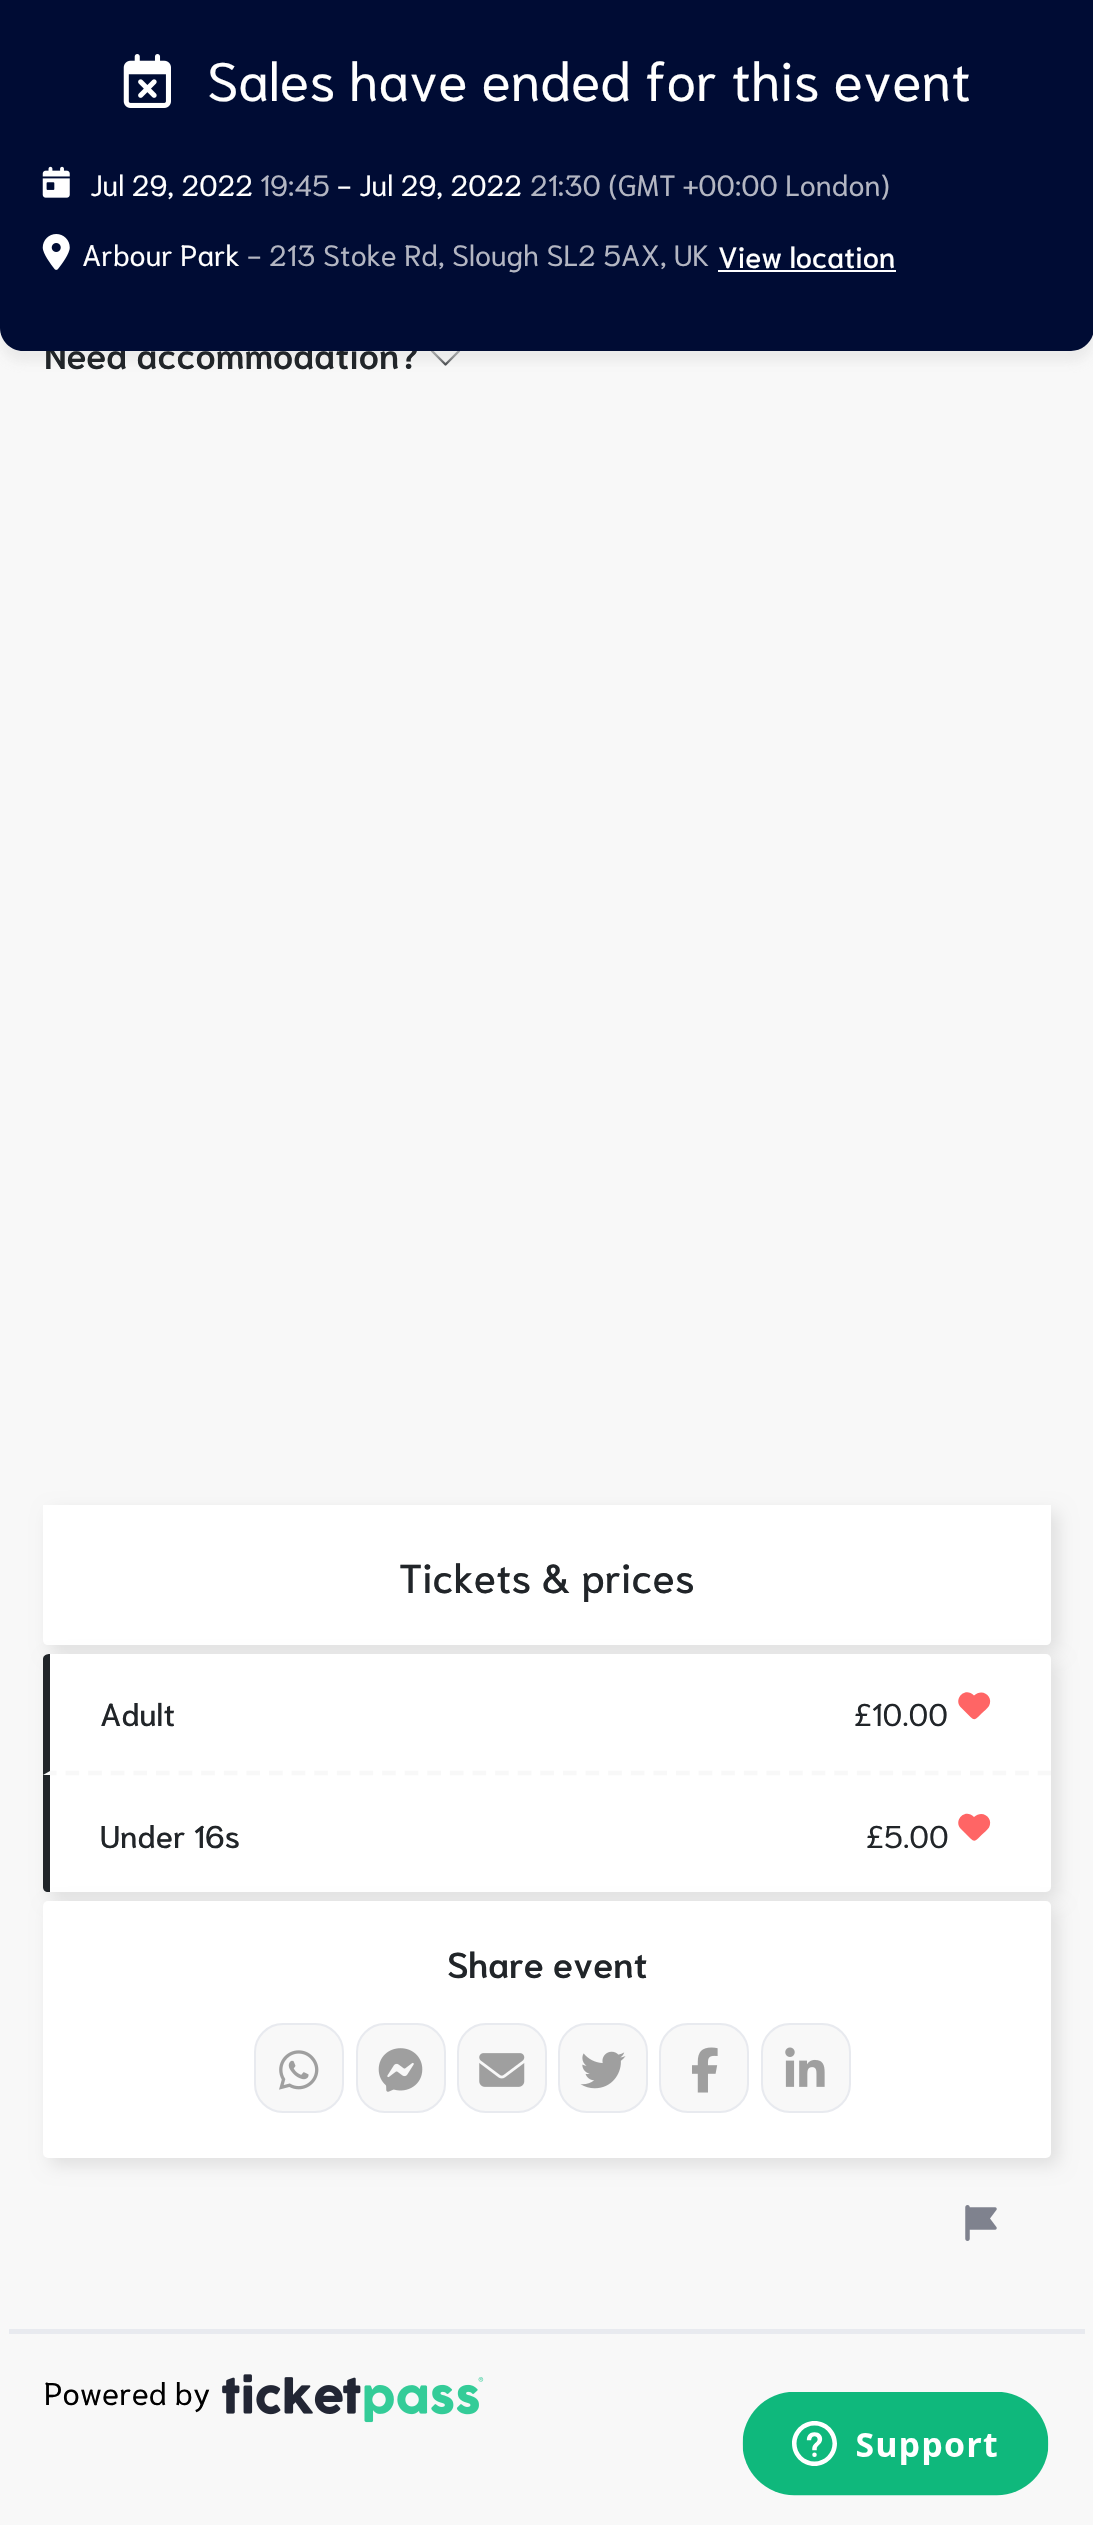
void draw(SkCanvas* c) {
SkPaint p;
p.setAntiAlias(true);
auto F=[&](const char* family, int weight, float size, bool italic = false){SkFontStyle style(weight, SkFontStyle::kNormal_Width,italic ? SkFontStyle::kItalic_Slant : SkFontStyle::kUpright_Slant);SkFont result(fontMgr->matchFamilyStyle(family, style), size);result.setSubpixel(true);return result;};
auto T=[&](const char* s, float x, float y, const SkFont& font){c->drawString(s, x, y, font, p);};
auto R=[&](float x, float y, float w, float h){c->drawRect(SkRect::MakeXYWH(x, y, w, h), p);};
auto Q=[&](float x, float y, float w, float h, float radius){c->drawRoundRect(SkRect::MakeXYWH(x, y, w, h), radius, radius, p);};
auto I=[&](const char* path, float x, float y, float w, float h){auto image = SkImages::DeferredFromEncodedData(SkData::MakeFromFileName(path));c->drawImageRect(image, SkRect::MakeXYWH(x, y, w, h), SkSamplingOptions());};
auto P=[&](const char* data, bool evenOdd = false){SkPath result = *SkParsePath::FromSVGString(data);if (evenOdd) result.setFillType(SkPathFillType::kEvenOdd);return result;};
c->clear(0xfff8f8f8);
I("4.png",430,351,31,15);
p.setColor(0xade5e5e5);
p.setMaskFilter(SkMaskFilter::MakeBlur(kNormal_SkBlurStyle, 5.5));
c->drawRoundRect(SkRect::MakeXYWH(0,9,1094,353),23,23,p);
p.setMaskFilter(nullptr);
auto f1 = F("Niramit",600,36);
p.setColor(0xff212529);
T("Need accommodation?",44,369,f1);
p.setColor(0xff000c34);
c->drawPath(P("M0-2h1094v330c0 12.5-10.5 23-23 23h-1048c-12.5 0-23-10.5-23-23z"),p);
I("1.png",123,54,48,54);
auto f2 = F("Niramit",400,54);
p.setColor(0xffffffff);
T("Sales have ended for this event",207,101,f2);
I("2.png",42,166,28,32);
auto f3 = F("Niramit",400,29.25);
T("Jul 29, 2022",90,196,f3);
p.setColor(0xffb3b6c2);
T("19:45",260,196,f3);
p.setColor(0xffffffff);
T("- Jul 29, 2022",337,196,f3);
p.setColor(0xffb3b6c2);
T("21:30 (GMT +00:00 London)",530,196,f3);
I("3.png",42,234,28,36);
p.setColor(0xffffffff);
T("Arbour Park",82,266,f3);
p.setColor(0xffb3b6c2);
T("- 213 Stoke Rd, Slough SL2 5AX, UK",247,266,f3);
auto f4 = F("Niramit",500,29.25);
p.setColor(0xffffffff);
T("View location",718,268,f4);
R(718,270,178,2);
p.setColor(0x1a000000);
p.setMaskFilter(SkMaskFilter::MakeBlur(kNormal_SkBlurStyle, 9));
c->drawRoundRect(SkRect::MakeXYWH(50,1512,1008,140),5,5,p);
p.setMaskFilter(nullptr);
p.setColor(0xffffffff);
c->drawPath(P("M43 1505h1008v135c0 3-2 5-5 5h-998c-3 0-5-2-5-5z"),p);
auto f5 = F("Niramit",500,40.5);
p.setColor(0xff212529);
T("Tickets & prices",399,1593,f5);
p.setColor(0x1a000000);
p.setMaskFilter(SkMaskFilter::MakeBlur(kNormal_SkBlurStyle, 9));
c->drawRoundRect(SkRect::MakeXYWH(50,1661,1008,238),5,5,p);
p.setMaskFilter(nullptr);
p.setColor(0xffffffff);
Q(43,1654,1008,238,5);
p.setStroke(true);
p.setStrokeWidth(4.5);
p.setColor(0xfff8f8f8);
p.setPathEffect(SkDashPathEffect::Make({{13.5f,9.11f}}, 0));
c->drawPath(P("M43 1773h1008"),p);
p.setPathEffect(nullptr);
p.setStroke(false);
p.setColor(0xff212529);
c->drawPath(P("M43 1775l7-4v-117c-3 0-7 1-7 5z"),p);
auto f6 = F("Niramit",500,31.5);
T("Adult",100,1726,f6);
auto f7 = F("Niramit",400,31.5);
T("£10.00",854,1726,f7);
p.setColor(0xffff6565);
c->drawPath(P("M961.5 1708l9 9c3.5 3 4 3 7.5 0l3.5-3.5c2.5-2.5 5.5-4.5 7.5-7.5c5-9.5-6.5-18.5-15-10.5c-9.5-9.5-21.5 4.5-12.5 12.5z"),p);
p.setColor(0xff212529);
c->drawPath(P("M43 1775h7v117h-2c-3 0-5-2-5-5z"),p);
T("Under 16s",100,1848,f6);
T("£5.00",866,1848,f7);
p.setColor(0xffff6565);
c->drawPath(P("M961.5 1829.5l9 9c3.5 3 4 3 7.5 0l3.5-3.5c2.5-2.5 5.5-4.5 7.5-7.5c5-9.5-6.5-18.5-15-10.5c-9.5-9.5-21.5 4.5-12.5 12.5z"),p);
p.setColor(0x1a000000);
p.setMaskFilter(SkMaskFilter::MakeBlur(kNormal_SkBlurStyle, 9));
c->drawRoundRect(SkRect::MakeXYWH(50,1908,1008,257),5,5,p);
p.setMaskFilter(nullptr);
p.setColor(0xffffffff);
Q(43,1901,1008,257,5);
p.setColor(0xff212529);
T("Share event",447,1978,f1);
p.setColor(0xfff8f8f8);
c->drawRoundRect(SkRect::MakeXYWH(255,2024,88,88),28,28,p);
p.setStroke(true);
p.setStrokeWidth(2);
p.setColor(0xffe8eaef);
c->drawRoundRect(SkRect::MakeXYWH(255,2024,88,88),28,28,p);
I("5.png",279,2050,40,40);
p.setStroke(false);
p.setColor(0xfff8f8f8);
c->drawRoundRect(SkRect::MakeXYWH(357,2024,88,88),28,28,p);
p.setStroke(true);
p.setColor(0xffe8eaef);
c->drawRoundRect(SkRect::MakeXYWH(357,2024,88,88),28,28,p);
I("6.png",378,2048,45,44);
p.setStroke(false);
p.setColor(0xfff8f8f8);
c->drawRoundRect(SkRect::MakeXYWH(458,2024,88,88),28,28,p);
p.setStroke(true);
p.setColor(0xffe8eaef);
c->drawRoundRect(SkRect::MakeXYWH(458,2024,88,88),28,28,p);
I("7.png",479,2053,46,34);
p.setStroke(false);
p.setColor(0xfff8f8f8);
c->drawRoundRect(SkRect::MakeXYWH(559,2024,88,88),28,28,p);
p.setStroke(true);
p.setColor(0xffe8eaef);
c->drawRoundRect(SkRect::MakeXYWH(559,2024,88,88),28,28,p);
I("8.png",580,2051,46,38);
p.setStroke(false);
p.setColor(0xfff8f8f8);
c->drawRoundRect(SkRect::MakeXYWH(660,2024,88,88),28,28,p);
p.setStroke(true);
p.setColor(0xffe8eaef);
c->drawRoundRect(SkRect::MakeXYWH(660,2024,88,88),28,28,p);
I("9.png",692,2047,26,46);
p.setStroke(false);
p.setColor(0xfff8f8f8);
c->drawRoundRect(SkRect::MakeXYWH(762,2024,88,88),28,28,p);
p.setStroke(true);
p.setColor(0xffe8eaef);
c->drawRoundRect(SkRect::MakeXYWH(762,2024,88,88),28,28,p);
I("10.png",785,2047,40,40);
I("11.png",965,2205,32,36);
p.setStroke(false);
R(9,2329,1076,5);
p.setColor(0xff000000);
T("Powered by",44,2405,f7);
I("12.png",222,2374,262,49);
I("13.png",742,2392,307,104);
}
